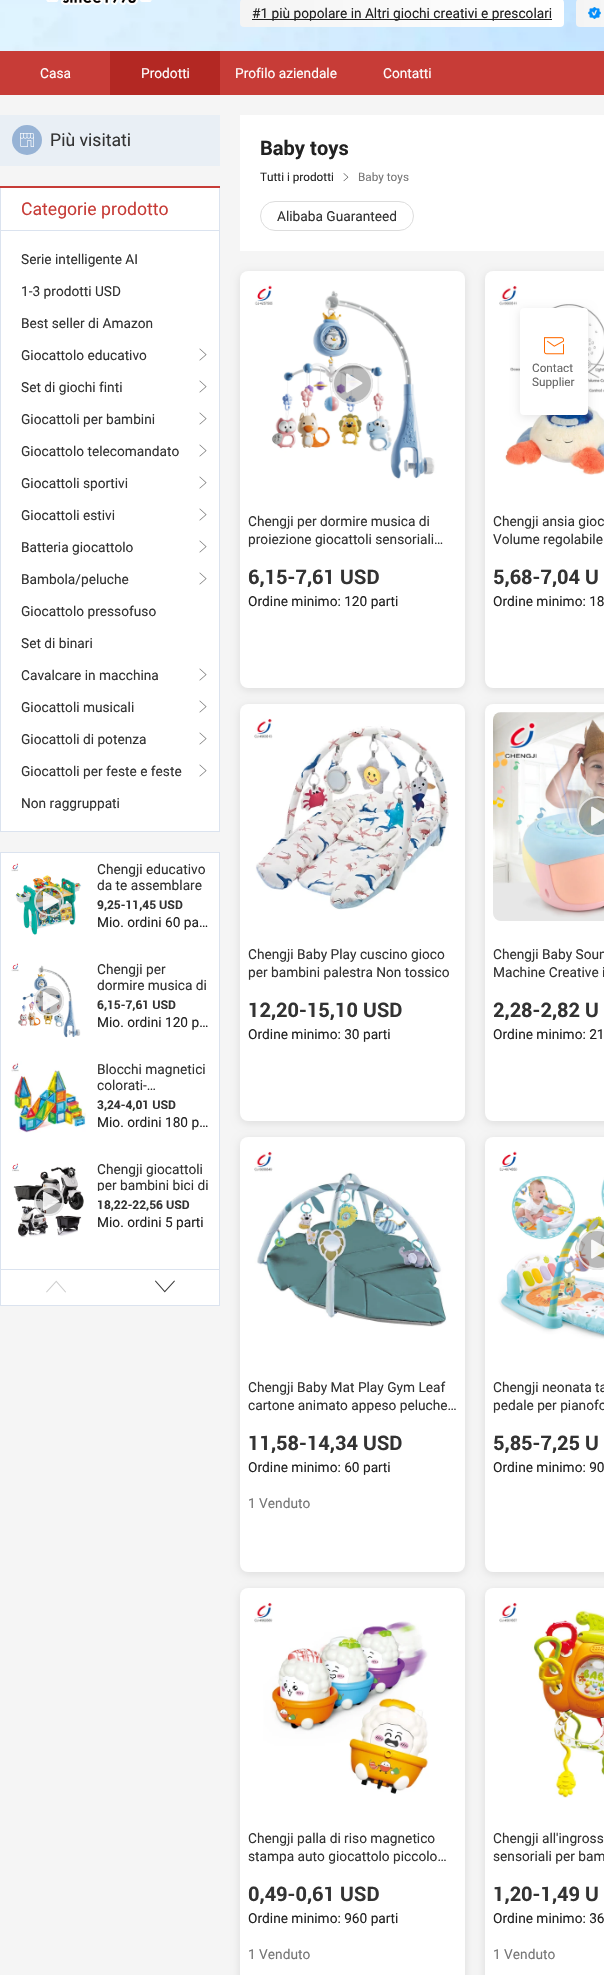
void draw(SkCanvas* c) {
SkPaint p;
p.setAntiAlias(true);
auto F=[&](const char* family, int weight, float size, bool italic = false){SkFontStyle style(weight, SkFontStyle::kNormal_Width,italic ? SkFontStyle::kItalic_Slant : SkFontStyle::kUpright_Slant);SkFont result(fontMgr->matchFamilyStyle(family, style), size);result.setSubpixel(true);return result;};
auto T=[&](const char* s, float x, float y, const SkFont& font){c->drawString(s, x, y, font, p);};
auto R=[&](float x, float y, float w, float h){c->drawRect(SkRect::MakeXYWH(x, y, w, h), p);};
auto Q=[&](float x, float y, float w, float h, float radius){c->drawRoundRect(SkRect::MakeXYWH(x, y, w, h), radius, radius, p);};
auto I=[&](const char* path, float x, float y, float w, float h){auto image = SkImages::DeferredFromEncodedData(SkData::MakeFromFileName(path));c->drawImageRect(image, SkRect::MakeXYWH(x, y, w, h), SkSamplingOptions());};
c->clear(0xfff5f5f5);
I("1.png",0,0,604,51);
I("2.png",46,0,106,5);
{
const SkColor colors[] = {0xffffffff,0xfff4f4f4};
const float stops[] = {0,1};
const SkPoint ends[] = {{564,13}, {240,13}};
p.setShader(SkGradientShader::MakeLinear(ends, colors, stops, 2, SkTileMode::kClamp));
p.setAlpha(255);
}
Q(240,-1,324,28,4);
p.setShader(nullptr);
p.setColor(0xff222222);
R(252,19,300,1);
auto f1 = F("Roboto",400,14);
T("#1 più popolare in Altri giochi creativi e prescolari",252,18,f1);
{
const SkColor colors[] = {0xffffffff,0xfff4f4f4};
const float stops[] = {0,1};
const SkPoint ends[] = {{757,13}, {576,13}};
p.setShader(SkGradientShader::MakeLinear(ends, colors, stops, 2, SkTileMode::kClamp));
p.setAlpha(255);
}
Q(576,-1,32,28,4);
I("3.png",588,7,13,12);
p.setShader(nullptr);
p.setColor(0xffc73c37);
R(0,51,604,44);
p.setColor(0xffffffff);
T("Casa",40,78,f1);
p.setColor(0xffb32823);
R(110,51,110,44);
p.setColor(0xffffffff);
T("Prodotti",141,78,f1);
T("Profilo aziendale",235,78,f1);
T("Contatti",383,78,f1);
p.setColor(0xffe9eff5);
R(0,115,220,51);
p.setColor(0xff97b3d5);
c->drawCircle(27,140,15,p);
I("4.png",20,133,14,14);
auto f2 = F("Roboto",400,18);
p.setColor(0xff333333);
T("Più visitati",50,146,f2);
p.setColor(0xffffffff);
R(1,188,218,643);
p.setColor(0xffc73c37);
R(0,186,220,2);
p.setColor(0xffdbe3ef);
R(219,188,1,644);
R(0,831,220,1);
R(0,188,1,644);
R(1,230,218,1);
p.setColor(0xffc73c37);
T("Categorie prodotto",21,215,f2);
p.setColor(0xff333333);
T("Serie intelligente AI",21,264,f1);
T("1-3 prodotti USD",21,296,f1);
T("Best seller di Amazon",21,328,f1);
T("Giocattolo educativo",21,360,f1);
I("5.png",199,348,8,13);
T("Set di giochi finti",21,392,f1);
I("5.png",199,380,8,13);
T("Giocattoli per bambini",21,424,f1);
I("5.png",199,412,8,13);
T("Giocattolo telecomandato",21,456,f1);
I("5.png",199,444,8,13);
T("Giocattoli sportivi",21,488,f1);
I("5.png",199,476,8,13);
T("Giocattoli estivi",21,520,f1);
I("5.png",199,508,8,13);
T("Batteria giocattolo",21,552,f1);
I("5.png",199,540,8,13);
T("Bambola/peluche",21,584,f1);
I("5.png",199,572,8,13);
T("Giocattolo pressofuso",21,616,f1);
T("Set di binari",21,648,f1);
T("Cavalcare in macchina",21,680,f1);
I("5.png",199,668,8,13);
T("Giocattoli musicali",21,712,f1);
I("5.png",199,700,8,13);
T("Giocattoli di potenza",21,744,f1);
I("5.png",199,732,8,13);
T("Giocattoli per feste e feste",21,776,f1);
I("5.png",199,764,8,13);
T("Non raggruppati",21,808,f1);
p.setColor(0xffffffff);
c->drawRect(SkRect::MakeXYWH(.5,852.5,219,453),p);
p.setStroke(true);
p.setStrokeWidth(1);
p.setColor(0xffdbe3ef);
c->drawRect(SkRect::MakeXYWH(.5,852.5,219,453),p);
I("6.png",11,863,71,72);
p.setStroke(false);
p.setColor(0x45000000);
c->drawCircle(49,901,15,p);
p.setStroke(true);
p.setStrokeWidth(2);
p.setColor(0xb8ffffff);
c->drawCircle(49,901,14,p);
I("7.png",42,891,18,20);
p.setStroke(false);
p.setColor(0xff333333);
T("Chengji educativo",97,874,f1);
T("da te assemblare",97,890,f1);
auto f3 = F("Roboto",700,12);
T("9,25-11,45 USD",97,909,f3);
p.setColor(0xff222222);
T("Mio. ordini 60 pa…",97,927,f1);
I("8.png",11,963,70,75);
p.setColor(0x45000000);
c->drawCircle(49,1001,15,p);
p.setStroke(true);
p.setColor(0xb8ffffff);
c->drawCircle(49,1001,14,p);
I("9.png",43,991,17,20);
p.setStroke(false);
p.setColor(0xff333333);
T("Chengji per",97,974,f1);
T("dormire musica di",97,990,f1);
T("6,15-7,61 USD",97,1009,f3);
p.setColor(0xff222222);
T("Mio. ordini 120 p…",97,1027,f1);
I("10.png",11,1061,75,72);
p.setColor(0xff333333);
T("Blocchi magnetici",97,1074,f1);
T("colorati-…",97,1090,f1);
T("3,24-4,01 USD",97,1109,f3);
p.setColor(0xff222222);
T("Mio. ordini 180 p…",97,1127,f1);
I("11.png",12,1163,72,75);
p.setColor(0x45000000);
c->drawCircle(49,1201,15,p);
p.setStroke(true);
p.setColor(0xb8ffffff);
c->drawCircle(49,1201,14,p);
I("12.png",42,1191,18,20);
p.setStroke(false);
p.setColor(0xff333333);
T("Chengji giocattoli",97,1174,f1);
c->save();
c->clipRect(SkRect::MakeXYWH(97,1161,114,30));
T("per bambini bici di",97,1190,f1);
c->restore();
T("18,22-22,56 USD",97,1209,f3);
p.setColor(0xff222222);
T("Mio. ordini 5 parti",97,1227,f1);
p.setColor(0xffdbe3ef);
R(1,1269,218,1);
I("13.png",46,1280,20,13);
I("14.png",155,1280,20,13);
p.setColor(0xffffffff);
R(240,115,364,136);
auto f4 = F("Roboto",700,20);
p.setColor(0xff222222);
T("Baby toys",260,155,f4);
auto f5 = F("Roboto",400,12);
T("Tutti i prodotti",260,181,f5);
I("15.png",343,173,6,9);
p.setColor(0xff767676);
T("Baby toys",358,181,f5);
p.setStroke(true);
p.setStrokeWidth(1);
p.setColor(0xffdddddd);
c->drawRoundRect(SkRect::MakeXYWH(260.5,201.5,153,29),14.5,14.5,p);
p.setStroke(false);
p.setColor(0xff333333);
T("Alibaba Guaranteed",277,221,f1);
p.setColor(0x1a000000);
p.setMaskFilter(SkMaskFilter::MakeBlur(kNormal_SkBlurStyle, 4));
c->drawRoundRect(SkRect::MakeXYWH(240,273,225,417),8,8,p);
p.setMaskFilter(nullptr);
p.setColor(0xffffffff);
Q(240,271,225,417,8);
I("16.png",248,279,209,209);
p.setColor(0x45000000);
c->drawCircle(352.5,383.5,20.5,p);
p.setStroke(true);
p.setStrokeWidth(2);
p.setColor(0xb8ffffff);
c->drawCircle(352.5,383.5,19.5,p);
I("17.png",346,373,17,20);
p.setStroke(false);
p.setColor(0xff333333);
T("Chengji per dormire musica di",248,526,f1);
T("proiezione giocattoli sensoriali…",248,544,f1);
T("6,15-7,61 USD",248,584,f4);
p.setColor(0xff222222);
T("Ordine minimo: 120 parti",248,606,f1);
p.setColor(0x1a000000);
p.setMaskFilter(SkMaskFilter::MakeBlur(kNormal_SkBlurStyle, 4));
c->drawRoundRect(SkRect::MakeXYWH(485,273,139,417),8,8,p);
p.setMaskFilter(nullptr);
p.setColor(0xffffffff);
Q(485,271,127,417,8);
I("18.png",499,285,105,190);
p.setColor(0xff333333);
T("Chengji ansia gioc",493,526,f1);
T("Volume regolabile",493,544,f1);
T("5,68-7,04 U",493,584,f4);
p.setColor(0xff222222);
T("Ordine minimo: 18",493,606,f1);
p.setColor(0x1a000000);
p.setMaskFilter(SkMaskFilter::MakeBlur(kNormal_SkBlurStyle, 4));
c->drawRoundRect(SkRect::MakeXYWH(240,706,225,417),8,8,p);
p.setMaskFilter(nullptr);
p.setColor(0xffffffff);
Q(240,704,225,417,8);
I("19.png",254,718,195,192);
p.setColor(0xff333333);
T("Chengji Baby Play cuscino gioco",248,959,f1);
T("per bambini palestra Non tossico",248,977,f1);
T("12,20-15,10 USD",248,1017,f4);
p.setColor(0xff222222);
T("Ordine minimo: 30 parti",248,1039,f1);
p.setColor(0x1a000000);
p.setMaskFilter(SkMaskFilter::MakeBlur(kNormal_SkBlurStyle, 4));
c->drawRoundRect(SkRect::MakeXYWH(485,706,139,417),8,8,p);
p.setMaskFilter(nullptr);
p.setColor(0xffffffff);
Q(485,704,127,417,8);
I("20.png",493,712,111,209);
p.setColor(0x45000000);
c->drawCircle(597.5,816.5,20.5,p);
p.setStroke(true);
p.setColor(0xb8ffffff);
c->drawCircle(597.5,816.5,19.5,p);
I("21.png",591,806,13,20);
p.setStroke(false);
p.setColor(0xff333333);
T("Chengji Baby Soun",493,959,f1);
T("Machine Creative i",493,977,f1);
T("2,28-2,82 U",493,1017,f4);
p.setColor(0xff222222);
T("Ordine minimo: 21",493,1039,f1);
p.setColor(0x1a000000);
p.setMaskFilter(SkMaskFilter::MakeBlur(kNormal_SkBlurStyle, 4));
c->drawRoundRect(SkRect::MakeXYWH(240,1139,225,435),8,8,p);
p.setMaskFilter(nullptr);
p.setColor(0xffffffff);
Q(240,1137,225,435,8);
I("22.png",254,1151,193,176);
p.setColor(0xff333333);
T("Chengji Baby Mat Play Gym Leaf",248,1392,f1);
T("cartone animato appeso peluche…",248,1410,f1);
T("11,58-14,34 USD",248,1450,f4);
p.setColor(0xff222222);
T("Ordine minimo: 60 parti",248,1472,f1);
p.setColor(0xff767676);
T("1 Venduto",248,1508,f1);
p.setColor(0x1a000000);
p.setMaskFilter(SkMaskFilter::MakeBlur(kNormal_SkBlurStyle, 4));
c->drawRoundRect(SkRect::MakeXYWH(485,1139,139,435),8,8,p);
p.setMaskFilter(nullptr);
p.setColor(0xffffffff);
Q(485,1137,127,435,8);
I("23.png",493,1145,111,209);
p.setColor(0x45000000);
c->drawCircle(597.5,1249.5,20.5,p);
p.setStroke(true);
p.setColor(0xb8ffffff);
c->drawCircle(597.5,1249.5,19.5,p);
I("24.png",591,1239,13,20);
p.setStroke(false);
p.setColor(0xff333333);
T("Chengji neonata ta",493,1392,f1);
T("pedale per pianofo",493,1410,f1);
T("5,85-7,25 U",493,1450,f4);
p.setColor(0xff222222);
T("Ordine minimo: 90",493,1472,f1);
p.setColor(0x1a000000);
p.setMaskFilter(SkMaskFilter::MakeBlur(kNormal_SkBlurStyle, 4));
c->drawRoundRect(SkRect::MakeXYWH(240,1590,225,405),8,8,p);
p.setMaskFilter(nullptr);
p.setColor(0xffffffff);
Q(240,1588,225,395,8);
I("25.png",254,1602,175,192);
p.setColor(0xff333333);
T("Chengji palla di riso magnetico",248,1843,f1);
T("stampa auto giocattolo piccolo…",248,1861,f1);
T("0,49-0,61 USD",248,1901,f4);
p.setColor(0xff222222);
T("Ordine minimo: 960 parti",248,1923,f1);
p.setColor(0xff767676);
T("1 Venduto",248,1959,f1);
p.setColor(0x1a000000);
p.setMaskFilter(SkMaskFilter::MakeBlur(kNormal_SkBlurStyle, 4));
c->drawRoundRect(SkRect::MakeXYWH(485,1590,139,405),8,8,p);
p.setMaskFilter(nullptr);
p.setColor(0xffffffff);
Q(485,1588,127,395,8);
I("26.png",499,1602,105,196);
p.setColor(0xff333333);
T("Chengji all'ingross",493,1843,f1);
T("sensoriali per bam",493,1861,f1);
T("1,20-1,49 U",493,1901,f4);
p.setColor(0xff222222);
T("Ordine minimo: 36",493,1923,f1);
p.setColor(0xff767676);
T("1 Venduto",493,1959,f1);
p.setColor(0x1a000000);
p.setMaskFilter(SkMaskFilter::MakeBlur(kNormal_SkBlurStyle, 5));
c->drawRoundRect(SkRect::MakeXYWH(520,310,68,107),4,4,p);
p.setMaskFilter(nullptr);
p.setColor(0xffffffff);
Q(520,308,68,107,4);
I("27.png",544,337,20,18);
p.setColor(0xff666666);
T("Contact",532,372,f5);
T("Supplier",532,386,f5);
}
